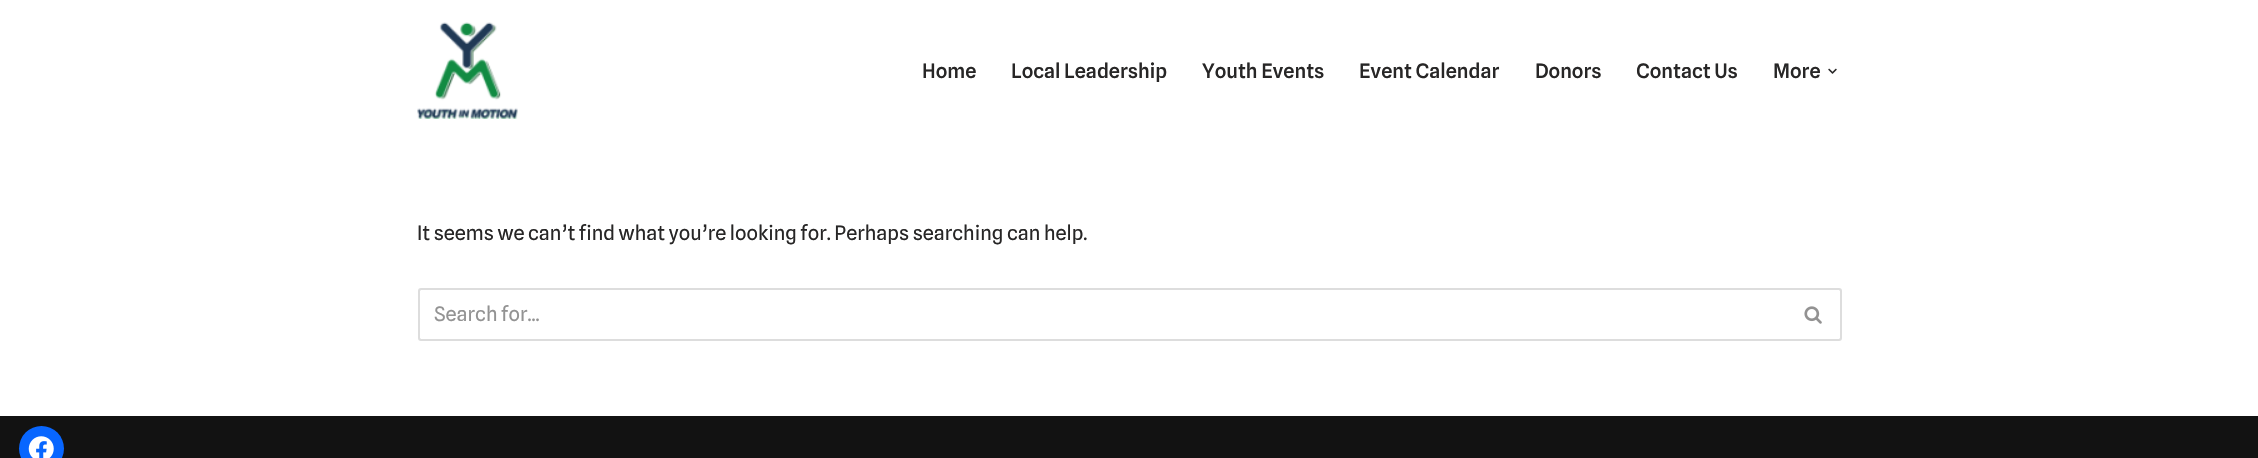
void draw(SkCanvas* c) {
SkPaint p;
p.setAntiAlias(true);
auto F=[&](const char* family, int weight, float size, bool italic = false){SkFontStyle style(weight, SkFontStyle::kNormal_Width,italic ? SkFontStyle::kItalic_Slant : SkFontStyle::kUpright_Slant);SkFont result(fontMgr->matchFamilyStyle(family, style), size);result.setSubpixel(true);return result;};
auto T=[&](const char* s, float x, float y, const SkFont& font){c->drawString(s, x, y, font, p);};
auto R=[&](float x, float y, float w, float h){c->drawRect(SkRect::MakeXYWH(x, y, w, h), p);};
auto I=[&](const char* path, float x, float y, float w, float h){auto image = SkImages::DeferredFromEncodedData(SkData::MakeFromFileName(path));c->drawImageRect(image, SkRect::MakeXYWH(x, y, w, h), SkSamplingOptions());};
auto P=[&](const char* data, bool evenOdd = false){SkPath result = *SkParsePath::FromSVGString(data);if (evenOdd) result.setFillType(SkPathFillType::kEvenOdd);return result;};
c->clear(0xffffffff);
I("1.png",417,22,101,97);
auto f1 = F("Spline Sans",500,20);
p.setColor(0xff272626);
T("Home",922,78,f1);
T("Local Leadership",1011,78,f1);
T("Youth Events",1202,78,f1);
T("Event Calendar",1359,78,f1);
T("Donors",1535,78,f1);
T("Contact Us",1636,78,f1);
T("More",1773,78,f1);
I("2.png",1828,68,9,6);
auto f2 = F("Spline Sans",400,20);
T("It seems we can’t find what you’re looking for. Perhaps searching can help.",417,240,f2);
p.setColor(0xffdddddd);
c->drawPath(P("M421 288h1365v53h-1365c-2 0-3-1-3-3v-47c0-2 1-3 3-3zm0 2h1365v49h-1365c0 0-1-1-1-1v-47c0 0 1-1 1-1z",true),p);
p.setColor(0xff939393);
T("Search for...",434,321,f2);
p.setColor(0xffdddddd);
c->drawPath(P("M1786 288h53c2 0 3 1 3 3v47c0 2-1 3-3 3h-53zm0 2h53c0 0 1 1 1 1v47c0 0-1 1-1 1h-53z",true),p);
I("3.png",1804,306,18,18);
p.setColor(0xff121212);
R(0,416,2258,42);
p.setColor(0xff0866ff);
c->drawCircle(41.5,448.5,22.5,p);
I("4.png",28,436,26,22);
}
